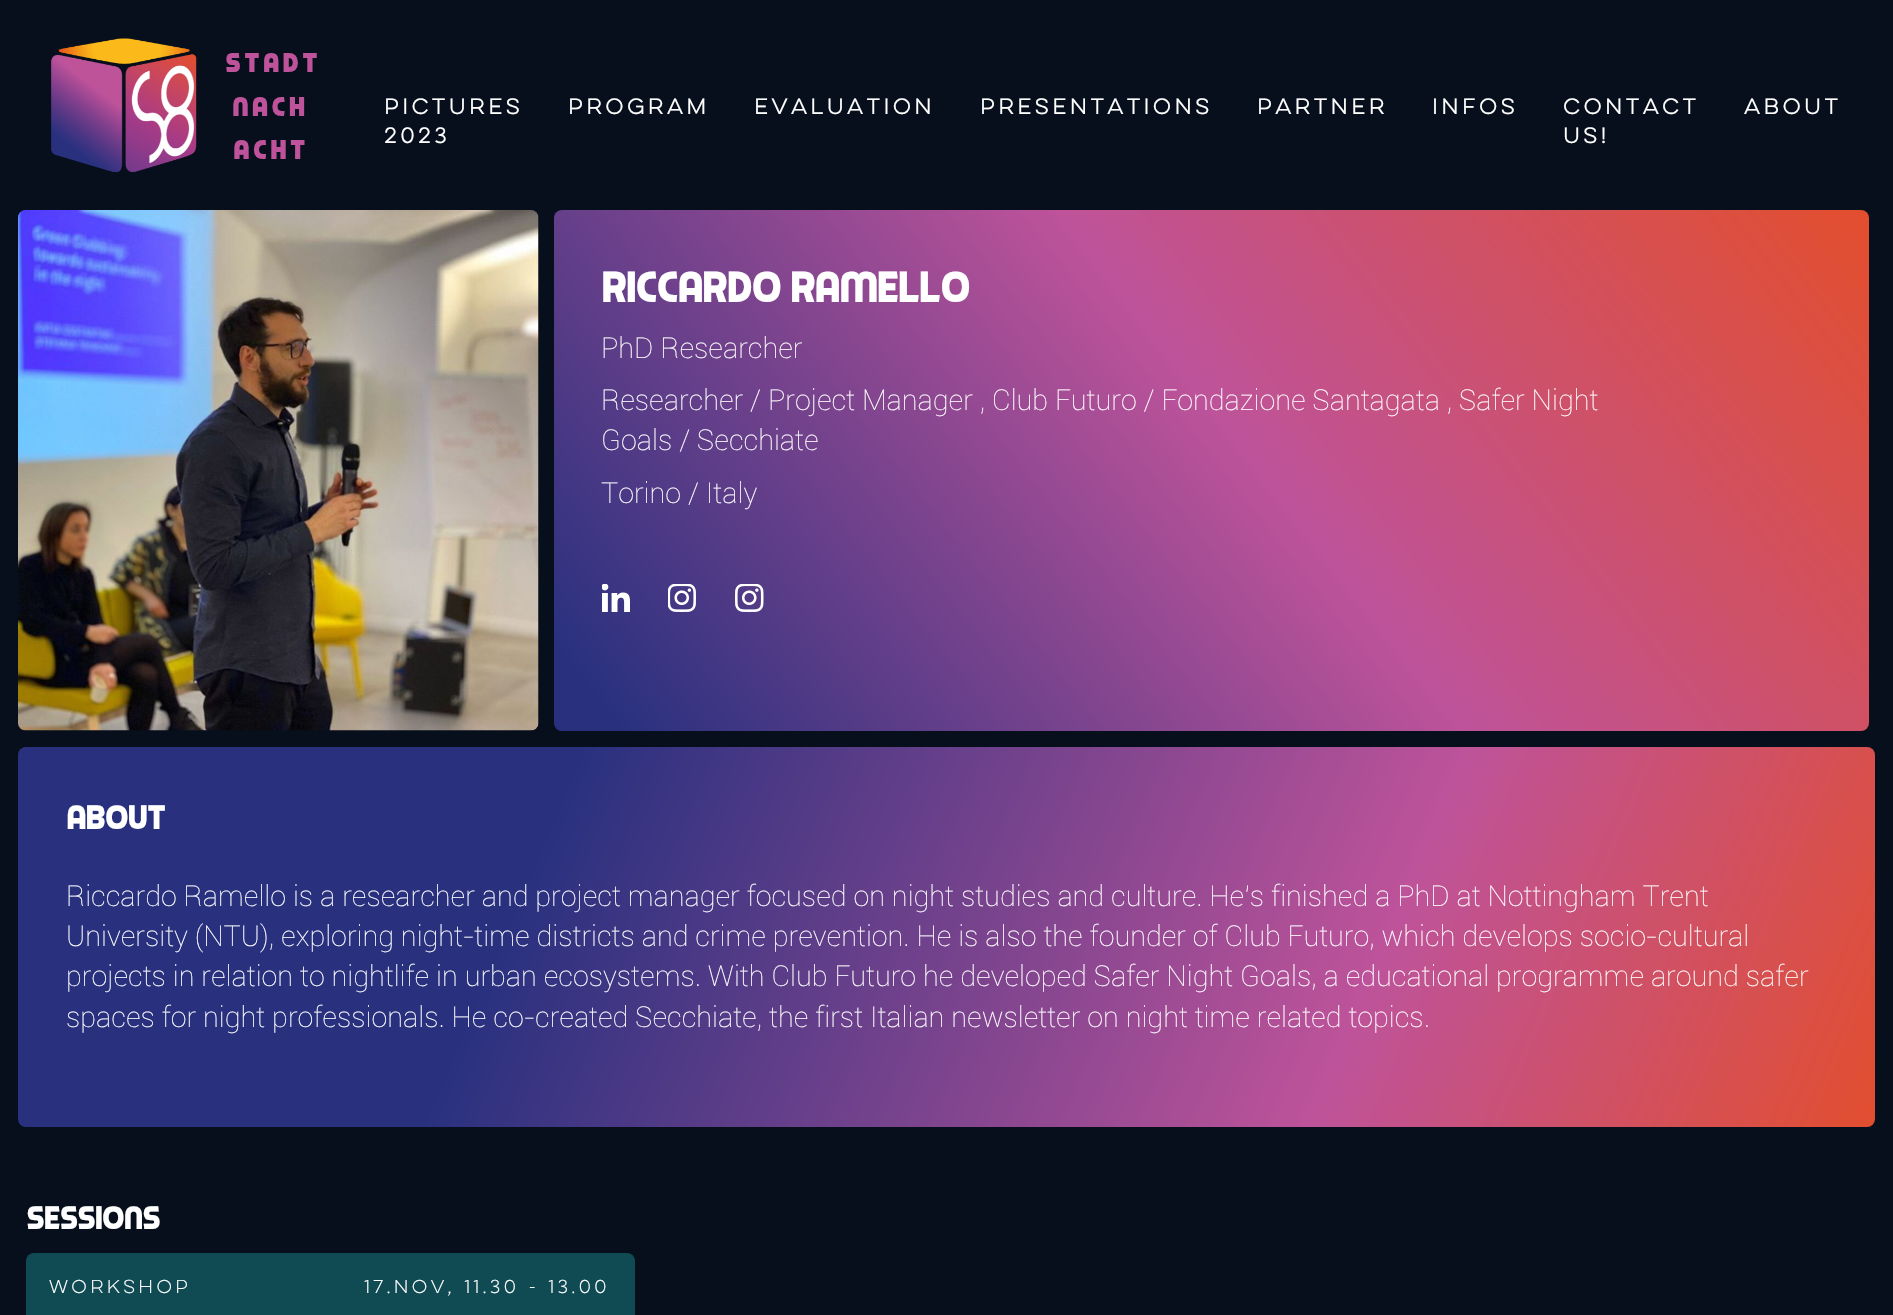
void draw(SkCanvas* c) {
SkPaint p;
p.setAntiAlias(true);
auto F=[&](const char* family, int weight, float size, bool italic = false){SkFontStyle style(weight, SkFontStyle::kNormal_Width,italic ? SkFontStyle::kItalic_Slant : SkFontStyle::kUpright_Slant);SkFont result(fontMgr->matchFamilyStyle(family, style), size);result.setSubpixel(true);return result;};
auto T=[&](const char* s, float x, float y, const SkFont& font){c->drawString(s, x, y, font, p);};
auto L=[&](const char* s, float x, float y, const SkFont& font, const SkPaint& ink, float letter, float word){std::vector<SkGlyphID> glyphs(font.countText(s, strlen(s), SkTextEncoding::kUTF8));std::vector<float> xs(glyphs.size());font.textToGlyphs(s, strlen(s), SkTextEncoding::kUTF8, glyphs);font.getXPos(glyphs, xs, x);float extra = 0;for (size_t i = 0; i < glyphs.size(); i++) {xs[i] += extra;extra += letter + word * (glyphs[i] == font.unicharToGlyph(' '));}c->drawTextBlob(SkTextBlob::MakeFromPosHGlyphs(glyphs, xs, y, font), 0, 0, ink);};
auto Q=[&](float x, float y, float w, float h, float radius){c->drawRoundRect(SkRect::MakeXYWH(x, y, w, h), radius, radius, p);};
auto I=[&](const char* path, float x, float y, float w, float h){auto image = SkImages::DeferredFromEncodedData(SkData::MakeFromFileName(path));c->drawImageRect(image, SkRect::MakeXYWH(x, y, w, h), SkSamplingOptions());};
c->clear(0xff060f1b);
I("1.png",51,38,146,135);
auto f1 = F("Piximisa",700,28.8);
p.setColor(0xffbf539b);
L("STADT",225,72,f1,p,4.75,0);
L("NACH",232,116,f1,p,4.75,0);
L("ACHT",233,159,f1,p,4.75,0);
auto f2 = F("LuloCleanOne",700,19.25);
p.setColor(0xffffffff);
T("PICTURES",384,114,f2);
T("2023",384,143,f2);
T("PROGRAM",568,114,f2);
T("EVALUATION",754,114,f2);
T("PRESENTATIONS",980,114,f2);
T("PARTNER",1257,114,f2);
T("INFOS",1432,114,f2);
T("CONTACT",1563,114,f2);
T("US!",1563,143,f2);
T("ABOUT",1744,114,f2);
I("2.png",18,210,521,521);
{
const SkColor colors[] = {0xff29317f,0xffbe539a,0xffe24e2f};
const float stops[] = {.04,.53,.99};
const SkPoint ends[] = {{677,888}, {1746,52}};
p.setShader(SkGradientShader::MakeLinear(ends, colors, stops, 3, SkTileMode::kClamp));
p.setAlpha(255);
}
Q(554,210,1315,521,8);
auto f3 = F("Piximisa",400,48);
p.setShader(nullptr);
p.setColor(0xffffffff);
T("Riccardo Ramello",601,302,f3);
auto f4 = F("Roboto",100,28.8);
T("PhD Researcher",601,358,f4);
T("Researcher / Project Manager , Club Futuro / Fondazione Santagata , Safer Night",601,410,f4);
T("Goals / Secchiate",601,450,f4);
T("Torino / Italy",601,503,f4);
I("3.png",602,584,28,28);
I("4.png",668,584,28,28);
I("5.png",735,584,29,28);
{
const SkColor colors[] = {0xff29317f,0xffbe539a,0xffe24e2f};
const float stops[] = {.28,.72,1};
const SkPoint ends[] = {{92,574}, {1801,1300}};
p.setShader(SkGradientShader::MakeLinear(ends, colors, stops, 3, SkTileMode::kClamp));
p.setAlpha(255);
}
Q(18,747,1857,380,8);
auto f5 = F("Piximisa",400,37.5);
p.setShader(nullptr);
p.setColor(0xffffffff);
T("About",66,829,f5);
T("Riccardo Ramello is a researcher and project manager focused on night studies and culture. He's finished a PhD at Nottingham Trent",66,906,f4);
T("University (NTU), exploring night-time districts and crime prevention. He is also the founder of Club Futuro, which develops socio-cultural",66,946,f4);
T("projects in relation to nightlife in urban ecosystems. With Club Futuro he developed Safer Night Goals, a educational programme around safer",66,986,f4);
T("spaces for night professionals. He co-created Secchiate, the first Italian newsletter on night time related topics.",66,1027,f4);
auto f6 = F("Piximisa",400,36);
T("Sessions",26,1229,f6);
p.setColor(0xff104b53);
Q(26,1253,609,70,8);
auto f7 = F("LuloCleanOne",400,16.75);
p.setColor(0xffffffff);
T("Workshop",49,1293,f7);
T("17.Nov, 11.30 - 13.00",364,1293,f7);
}
